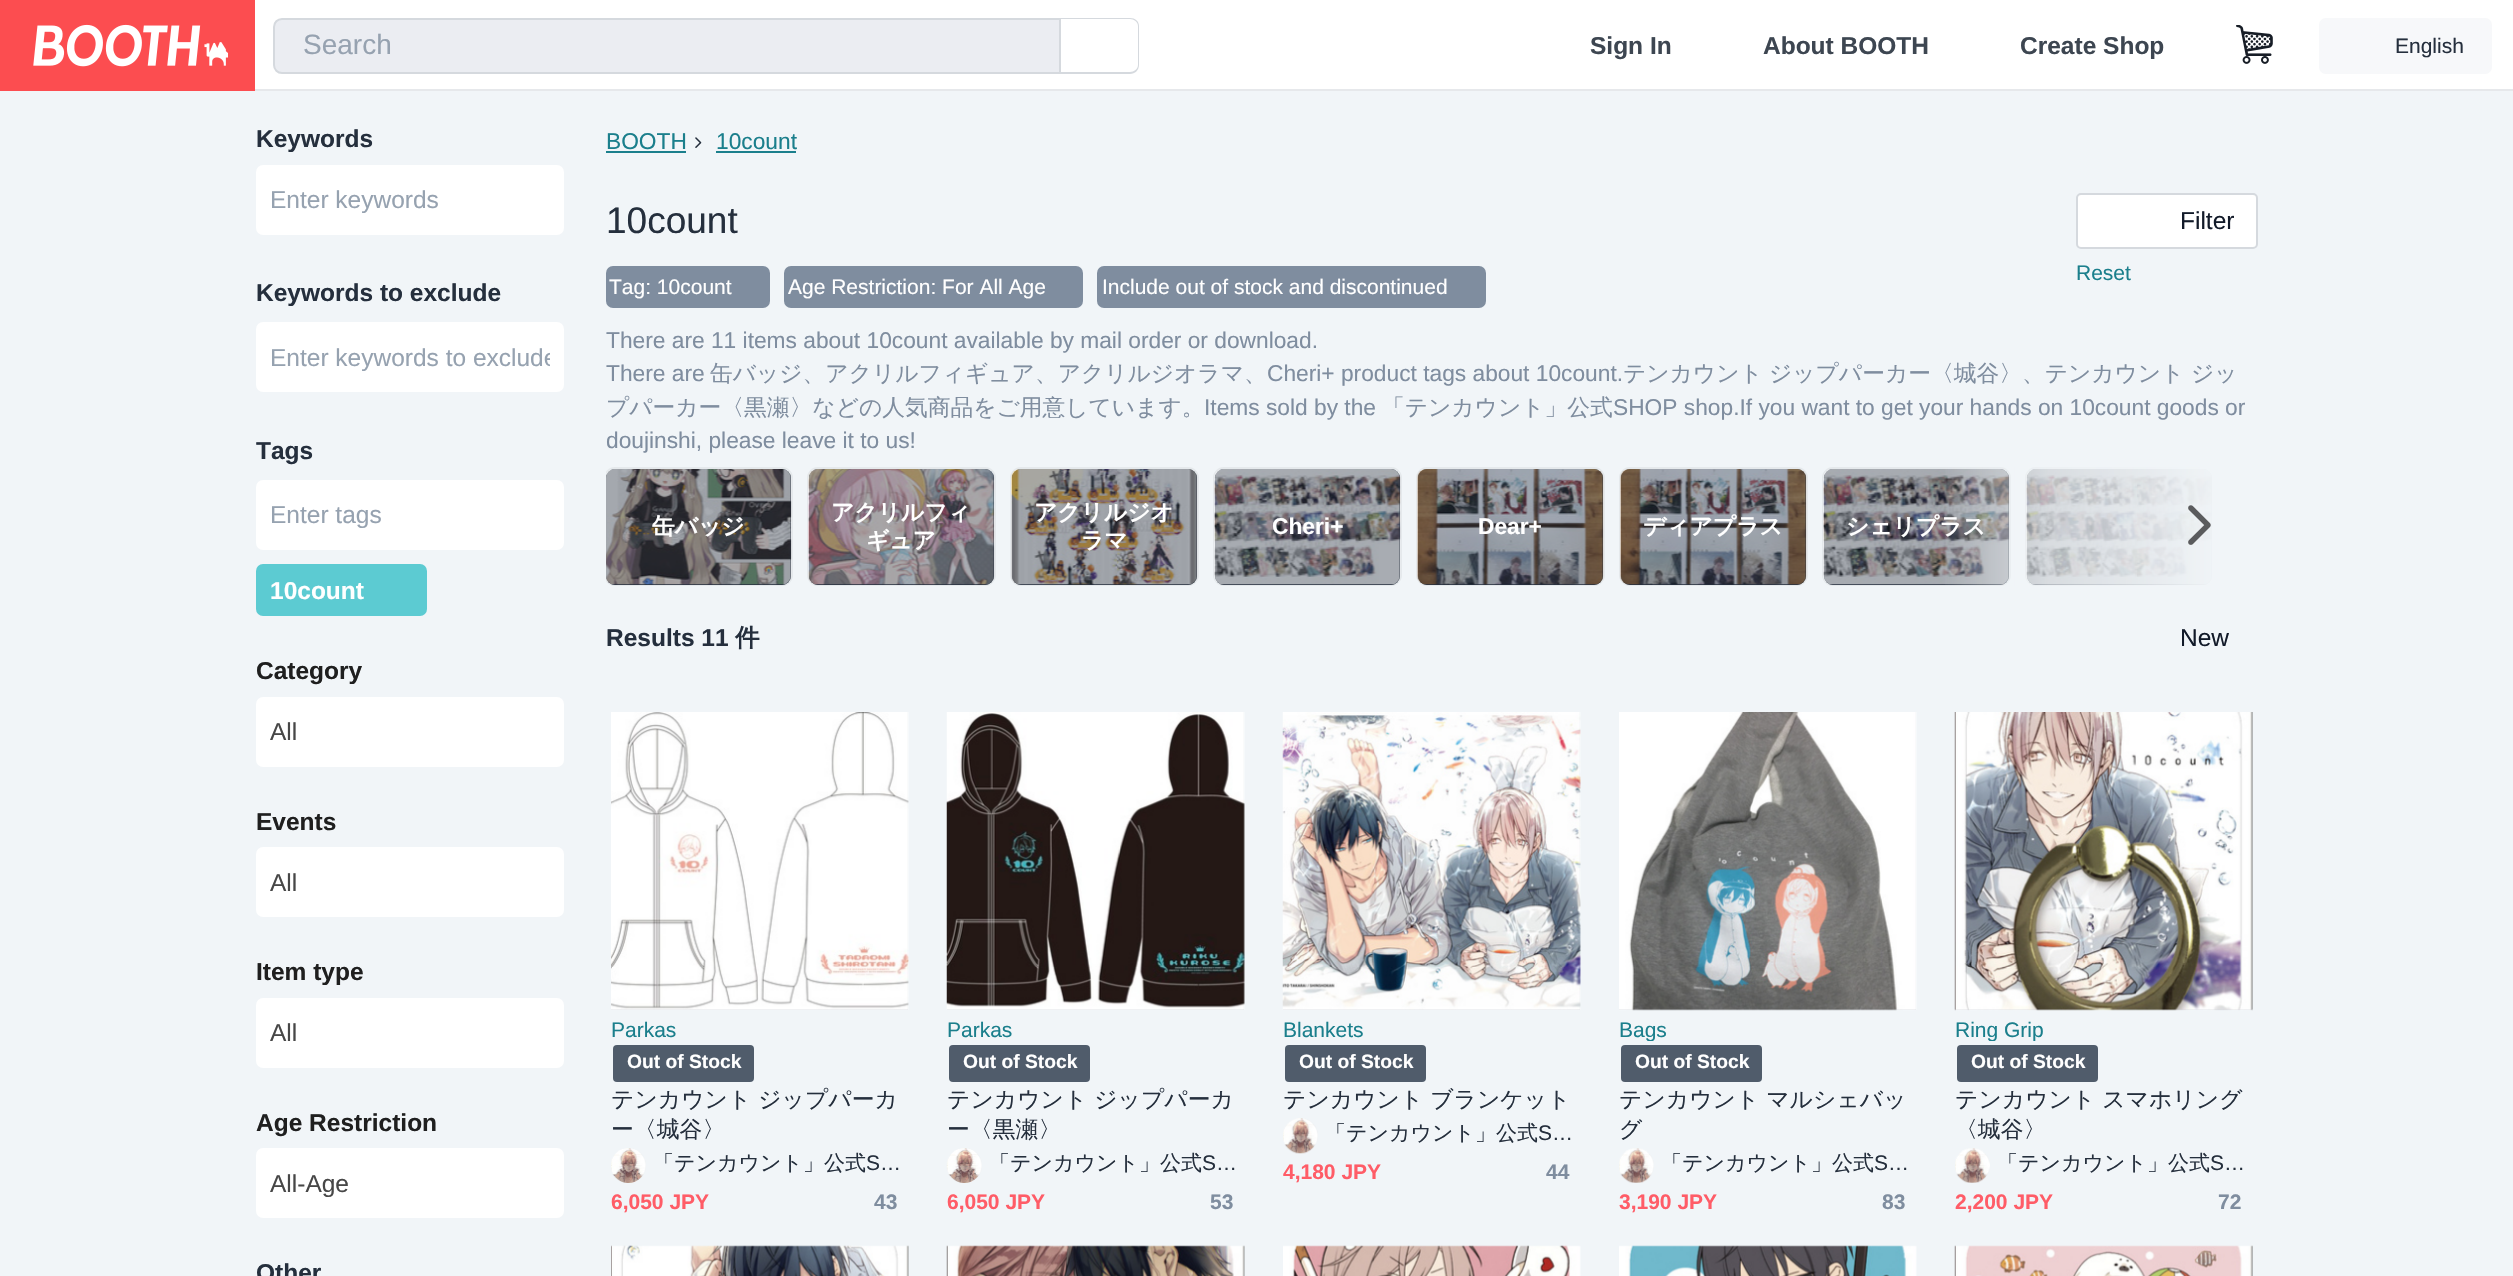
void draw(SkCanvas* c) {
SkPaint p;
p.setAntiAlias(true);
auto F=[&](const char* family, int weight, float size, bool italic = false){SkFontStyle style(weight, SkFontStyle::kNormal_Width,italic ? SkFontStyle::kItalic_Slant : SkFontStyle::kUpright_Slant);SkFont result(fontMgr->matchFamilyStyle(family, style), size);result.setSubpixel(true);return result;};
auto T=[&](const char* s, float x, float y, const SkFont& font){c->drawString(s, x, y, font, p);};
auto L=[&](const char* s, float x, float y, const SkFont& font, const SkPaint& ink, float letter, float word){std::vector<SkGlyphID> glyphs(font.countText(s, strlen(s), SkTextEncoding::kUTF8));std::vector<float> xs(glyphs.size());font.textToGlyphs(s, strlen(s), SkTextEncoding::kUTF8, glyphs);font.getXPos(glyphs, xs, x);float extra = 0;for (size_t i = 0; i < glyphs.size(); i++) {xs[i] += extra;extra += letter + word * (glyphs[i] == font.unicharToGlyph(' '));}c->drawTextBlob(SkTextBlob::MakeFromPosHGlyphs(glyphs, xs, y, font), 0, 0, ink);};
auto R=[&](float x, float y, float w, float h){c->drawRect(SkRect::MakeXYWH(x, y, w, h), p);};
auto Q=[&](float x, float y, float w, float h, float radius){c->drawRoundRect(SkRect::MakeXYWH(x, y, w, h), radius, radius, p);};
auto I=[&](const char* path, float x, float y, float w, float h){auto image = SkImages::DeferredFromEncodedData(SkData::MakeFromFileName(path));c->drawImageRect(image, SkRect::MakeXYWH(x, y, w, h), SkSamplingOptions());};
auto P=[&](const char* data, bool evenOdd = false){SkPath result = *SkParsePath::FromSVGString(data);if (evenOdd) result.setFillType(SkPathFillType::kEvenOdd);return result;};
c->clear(0xffffffff);
p.setColor(0xffe6e8eb);
R(255,89,2258,2);
I("1.png",0,0,255,91);
p.setColor(0xffd5d9de);
c->drawPath(P("M1060 18h70c5 0 9 3 9 8v39c0 5-4 9-9 9h-70zm0 1h70c4 0 8 3 8 7v39c0 4-4 7-8 7h-70z",true),p);
p.setColor(0xffebedf2);
c->drawPath(P("M282 19h778v54h-778c-4.5 0-8-3.5-8-8v-38c0-4.5 3.5-8 8-8z"),p);
p.setStroke(true);
p.setStrokeWidth(2);
p.setColor(0xffd5d9de);
c->drawPath(P("M282 19h778v54h-778c-4.5 0-8-3.5-8-8v-38c0-4.5 3.5-8 8-8z"),p);
auto f1 = F("Liberation Sans",400,28);
p.setStroke(false);
p.setColor(0xff96a2b0);
T("Search",303,54,f1);
auto f2 = F("Liberation Sans",700,24.5);
p.setColor(0xff3d4651);
T("Sign In",1590,54,f2);
T("About BOOTH",1763,54,f2);
T("Create Shop",2020,54,f2);
I("2.png",2236,25,37,39);
p.setColor(0xfff7f8fa);
Q(2319,18,173,56,7);
auto f3 = F("Liberation Sans",400,21);
p.setColor(0xff252f3d);
T("English",2395,53,f3);
p.setColor(0xfff1f5f8);
R(0,91,2513,1185);
p.setColor(0xff252f3d);
T("Keywords",256,147,f2);
p.setColor(0xffffffff);
Q(256,165,308,70,7);
auto f4 = F("Liberation Sans",400,24.5);
p.setColor(0xff96a2b0);
T("Enter keywords",270,208,f4);
p.setColor(0xff252f3d);
T("Keywords to exclude",256,301,f2);
p.setColor(0xffffffff);
Q(256,322,308,70,7);
c->save();
c->clipRect(SkRect::MakeXYWH(270,343,280,28));
p.setColor(0xff96a2b0);
T("Enter keywords to exclude",270,366,f4);
c->restore();
p.setColor(0xff252f3d);
T("Tags",256,459,f2);
p.setColor(0xffffffff);
Q(256,480,308,70,7);
p.setColor(0xff96a2b0);
T("Enter tags",270,523,f4);
p.setColor(0xff5ccbd2);
Q(256,564,171,52,7);
p.setColor(0xffffffff);
T("10count",270,599,f2);
p.setColor(0xff1f1f1f);
T("Category",256,679,f2);
p.setColor(0xffffffff);
Q(256,697,308,70,7);
p.setColor(0xff474747);
T("All",270,740,f4);
p.setColor(0xff1f1f1f);
T("Events",256,830,f2);
p.setColor(0xffffffff);
Q(256,847,308,70,7);
p.setColor(0xff474747);
T("All",270,891,f4);
p.setColor(0xff1f1f1f);
T("Item type",256,980,f2);
p.setColor(0xffffffff);
Q(256,998,308,70,7);
p.setColor(0xff474747);
T("All",270,1041,f4);
p.setColor(0xff1f1f1f);
T("Age Restriction",256,1131,f2);
p.setColor(0xffffffff);
Q(256,1148,308,70,7);
p.setColor(0xff474747);
T("All-Age",270,1192,f4);
p.setColor(0xff252f3d);
T("Other",256,1281,f2);
auto f5 = F("Liberation Sans",400,22.75);
p.setColor(0xff1b7f8c);
T("BOOTH",606,149,f5);
R(606,151,80,2);
I("3.png",695,137,7,11);
T("10count",716,149,f5);
R(716,151,80,2);
auto f6 = F("Liberation Sans",400,37);
p.setColor(0xff252f3d);
T("10count",606,233,f6);
p.setColor(0xffffffff);
c->drawRoundRect(SkRect::MakeXYWH(2077,194,180,54),4,4,p);
p.setStroke(true);
p.setColor(0xffd5d9de);
c->drawRoundRect(SkRect::MakeXYWH(2077,194,180,54),4,4,p);
p.setStroke(false);
p.setColor(0xff121a29);
T("Filter",2180,229,f4);
p.setColor(0xff1b7f8c);
T("Reset",2076,280,f3);
p.setColor(0xff7f8d9f);
Q(606,266,164,42,7);
p.setColor(0xffffffff);
T("Tag: 10count",609,294,f3);
p.setColor(0xff7f8d9f);
Q(784,266,299,42,7);
p.setColor(0xffffffff);
T("Age Restriction: For All Age",788,294,f3);
p.setColor(0xff7f8d9f);
Q(1097,266,389,42,7);
p.setColor(0xffffffff);
T("Include out of stock and discontinued",1102,294,f3);
p.setColor(0xff7f8d9f);
T("There are 11 items about 10count available by mail order or download.",606,348,f5);
T("There are",606,381,f5);
auto f7 = F("WenQuanYi Zen Hei",500,22.75);
T("缶バッジ、アクリルフィギュア、アクリルジオラマ、",710,381,f7);
T("Cheri+ product tags about 10count.",1267,381,f5);
T("テンカウント",1623,381,f7);
T("ジップパーカー〈城谷〉、テンカウント",1769,381,f7);
T("ジッ",2191,381,f7);
T("プパーカー〈黒瀬〉などの人気商品をご用意しています。",606,415,f7);
T("Items sold by the",1204,415,f5);
T("「テンカウント」公式",1382,415,f7);
T("SHOP shop.If you want to get your hands on 10count goods or",1613,415,f5);
T("doujinshi, please leave it to us!",606,448,f5);
c->save();
c->clipRect(SkRect::MakeXYWH(606,459,1652,136));
p.setStroke(true);
p.setColor(0xffe5e9ec);
c->drawRoundRect(SkRect::MakeXYWH(605,468,187,117),10,10,p);
c->restore();
p.setStroke(false);
p.setColor(0xff252f3d);
Q(606,469,185,116,9);
p.setColor(0x99252f3d);
Q(606,469,185,116,9);
I("4.png",606,469,186,116);
auto f8 = F("WenQuanYi Zen Hei",700,22.75);
p.setColor(0xffffffff);
T("缶バッジ",652,534,f8);
p.setStroke(true);
p.setColor(0xffe5e9ec);
c->drawRoundRect(SkRect::MakeXYWH(808,468,187,117),10,10,p);
p.setStroke(false);
p.setColor(0xff252f3d);
Q(809,469,185,116,9);
p.setColor(0x99252f3d);
Q(809,469,185,116,9);
I("5.png",808,469,187,116);
p.setColor(0xffffffff);
T("アクリルフィ",831,520,f8);
T("ギュア",866,548,f8);
p.setStroke(true);
p.setColor(0xffe5e9ec);
c->drawRoundRect(SkRect::MakeXYWH(1011,468,187,117),10,10,p);
p.setStroke(false);
p.setColor(0xff252f3d);
Q(1012,469,185,116,9);
p.setColor(0x99252f3d);
Q(1012,469,185,116,9);
I("6.png",1011,469,187,116);
p.setColor(0xffffffff);
T("アクリルジオ",1034,520,f8);
T("ラマ",1081,548,f8);
p.setStroke(true);
p.setColor(0xffe5e9ec);
c->drawRoundRect(SkRect::MakeXYWH(1214,468,187,117),10,10,p);
p.setStroke(false);
p.setColor(0xff252f3d);
Q(1215,469,185,116,9);
p.setColor(0x99252f3d);
Q(1215,469,185,116,9);
I("7.png",1214,469,187,116);
auto f9 = F("Liberation Sans",700,22.75);
p.setColor(0xffffffff);
T("Cheri+",1272,534,f9);
p.setStroke(true);
p.setColor(0xffe5e9ec);
c->drawRoundRect(SkRect::MakeXYWH(1417,468,187,117),10,10,p);
p.setStroke(false);
p.setColor(0xff252f3d);
Q(1418,469,185,116,9);
p.setColor(0x99252f3d);
Q(1418,469,185,116,9);
I("8.png",1417,469,187,116);
p.setColor(0xffffffff);
T("Dear+",1478,534,f9);
p.setStroke(true);
p.setColor(0xffe5e9ec);
c->drawRoundRect(SkRect::MakeXYWH(1620,468,187,117),10,10,p);
p.setStroke(false);
p.setColor(0xff252f3d);
Q(1621,469,185,116,9);
p.setColor(0x99252f3d);
Q(1621,469,185,116,9);
I("9.png",1620,469,187,116);
p.setColor(0xffffffff);
T("ディアプラス",1643,534,f8);
p.setStroke(true);
p.setColor(0xffe5e9ec);
c->drawRoundRect(SkRect::MakeXYWH(1823,468,187,117),10,10,p);
p.setStroke(false);
p.setColor(0xff252f3d);
Q(1824,469,185,116,9);
p.setColor(0x99252f3d);
Q(1824,469,185,116,9);
I("10.png",1823,469,187,116);
p.setColor(0xffffffff);
T("シェリプラス",1846,534,f8);
p.setStroke(true);
p.setColor(0xffe5e9ec);
c->drawRoundRect(SkRect::MakeXYWH(2026,468,187,117),10,10,p);
p.setStroke(false);
p.setColor(0xff252f3d);
Q(2027,469,185,116,9);
p.setColor(0x99252f3d);
Q(2027,469,185,116,9);
I("11.png",2026,469,187,116);
{
const SkColor colors[] = {0x00f1f5f8,0xa8f1f5f8,0xfff1f5f8};
const float stops[] = {0,.34,.89};
const SkPoint ends[] = {{1941,526}, {2258,526}};
p.setShader(SkGradientShader::MakeLinear(ends, colors, stops, 3, SkTileMode::kClamp));
p.setAlpha(255);
}
R(1945,467,269,119);
I("12.png",2188,505,23,40);
p.setShader(nullptr);
p.setColor(0xff252f3d);
T("Results 11",606,646,f2);
auto f10 = F("WenQuanYi Zen Hei",700,24.5);
T("件",735,646,f10);
p.setColor(0xff121a29);
T("New",2180,646,f4);
p.setColor(0xffd7d9e0);
R(611,712,297,298);
I("13.png",611,712,298,298);
p.setColor(0xff1b7f8c);
T("Parkas",611,1037,f3);
p.setColor(0xff505c6b);
Q(613,1045,141,37,4);
auto f11 = F("Liberation Sans",700,19.25);
p.setColor(0xffffffff);
T("Out of Stock",627,1068,f11);
p.setColor(0xff252f3d);
L("テンカウント ジップパーカ",611,1107,f7,p,.1,0);
L("ー〈城谷〉",611,1137,f7,p,.1,0);
p.setStroke(true);
p.setColor(0xffe5e9ec);
c->drawCircle(628.5,1165.5,16.5,p);
I("14.png",611,1148,35,35);
auto f12 = F("WenQuanYi Zen Hei",500,21);
p.setStroke(false);
p.setColor(0xff252f3d);
T("「テンカウント」公式",653,1170,f12);
T("S…",866,1170,f3);
auto f13 = F("Liberation Sans",700,21);
p.setColor(0xffff5c67);
T("6,050 JPY",611,1209,f13);
p.setColor(0xff7f8d9f);
T("43",874,1209,f13);
p.setColor(0xffd7d9e0);
R(947,712,297,298);
I("15.png",946,712,299,298);
p.setColor(0xff1b7f8c);
T("Parkas",947,1037,f3);
p.setColor(0xff505c6b);
Q(949,1045,141,37,4);
p.setColor(0xffffffff);
T("Out of Stock",963,1068,f11);
p.setColor(0xff252f3d);
L("テンカウント ジップパーカ",947,1107,f7,p,.1,0);
L("ー〈黒瀬〉",947,1137,f7,p,.1,0);
p.setStroke(true);
p.setColor(0xffe5e9ec);
c->drawCircle(964.5,1165.5,16.5,p);
I("16.png",946,1148,36,35);
p.setStroke(false);
p.setColor(0xff252f3d);
T("「テンカウント」公式",989,1170,f12);
T("S…",1202,1170,f3);
p.setColor(0xffff5c67);
T("6,050 JPY",947,1209,f13);
p.setColor(0xff7f8d9f);
T("53",1210,1209,f13);
p.setColor(0xffd7d9e0);
R(1283,712,297,298);
I("17.png",1282,712,299,298);
p.setColor(0xff1b7f8c);
T("Blankets",1283,1037,f3);
p.setColor(0xff505c6b);
Q(1285,1045,141,37,4);
p.setColor(0xffffffff);
T("Out of Stock",1299,1068,f11);
p.setColor(0xff252f3d);
L("テンカウント ブランケット",1283,1107,f7,p,.1,0);
p.setStroke(true);
p.setColor(0xffe5e9ec);
c->drawCircle(1300.5,1135.5,16.5,p);
I("18.png",1283,1118,35,36);
p.setStroke(false);
p.setColor(0xff252f3d);
T("「テンカウント」公式",1325,1140,f12);
T("S…",1538,1140,f3);
p.setColor(0xffff5c67);
T("4,180 JPY",1283,1179,f13);
p.setColor(0xff7f8d9f);
T("44",1546,1179,f13);
p.setColor(0xffd7d9e0);
R(1619,712,297,298);
I("19.png",1619,712,298,299);
c->save();
c->clipRect(SkRect::MakeXYWH(1619,1020,297,21));
p.setColor(0xff1b7f8c);
T("Bags",1619,1037,f3);
c->restore();
p.setColor(0xff505c6b);
Q(1621,1045,141,37,4);
p.setColor(0xffffffff);
T("Out of Stock",1635,1068,f11);
p.setColor(0xff252f3d);
L("テンカウント マルシェバッ",1619,1107,f7,p,.1,0);
L("グ",1619,1137,f7,p,.1,0);
p.setStroke(true);
p.setColor(0xffe5e9ec);
c->drawCircle(1636.5,1165.5,16.5,p);
I("20.png",1619,1148,35,35);
p.setStroke(false);
p.setColor(0xff252f3d);
T("「テンカウント」公式",1661,1170,f12);
T("S…",1874,1170,f3);
p.setColor(0xffff5c67);
T("3,190 JPY",1619,1209,f13);
p.setColor(0xff7f8d9f);
T("83",1882,1209,f13);
p.setColor(0xffd7d9e0);
R(1955,712,297,298);
I("21.png",1954,712,299,299);
c->save();
c->clipRect(SkRect::MakeXYWH(1955,1020,297,21));
p.setColor(0xff1b7f8c);
T("Ring Grip",1955,1037,f3);
c->restore();
p.setColor(0xff505c6b);
Q(1957,1045,141,37,4);
p.setColor(0xffffffff);
T("Out of Stock",1971,1068,f11);
p.setColor(0xff252f3d);
L("テンカウント スマホリング",1955,1107,f7,p,.1,0);
L("〈城谷〉",1955,1137,f7,p,.1,0);
p.setStroke(true);
p.setColor(0xffe5e9ec);
c->drawCircle(1972.5,1165.5,16.5,p);
I("22.png",1955,1148,35,35);
p.setStroke(false);
p.setColor(0xff252f3d);
T("「テンカウント」公式",1997,1170,f12);
T("S…",2210,1170,f3);
p.setColor(0xffff5c67);
T("2,200 JPY",1955,1209,f13);
p.setColor(0xff7f8d9f);
T("72",2218,1209,f13);
I("23.png",611,1245,298,31);
I("24.png",946,1245,299,31);
I("25.png",1283,1245,298,31);
I("26.png",1619,1245,298,31);
I("27.png",1954,1245,299,31);
}
